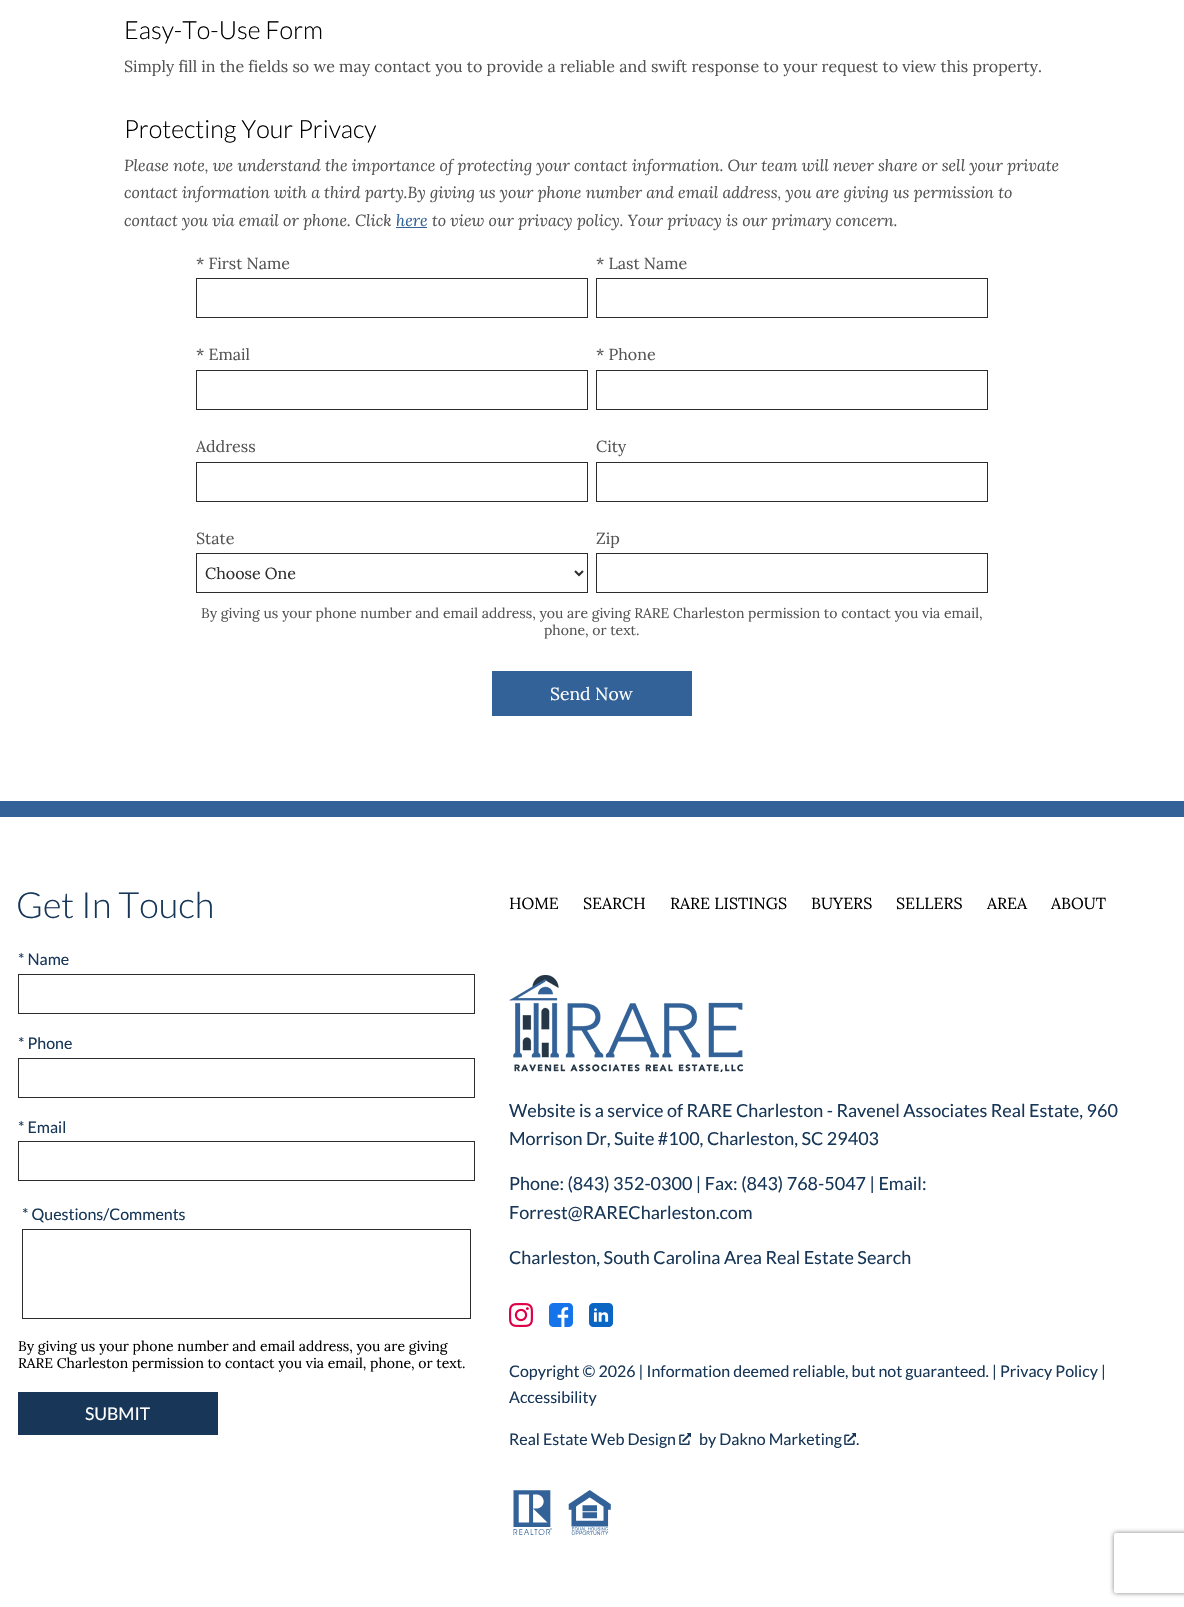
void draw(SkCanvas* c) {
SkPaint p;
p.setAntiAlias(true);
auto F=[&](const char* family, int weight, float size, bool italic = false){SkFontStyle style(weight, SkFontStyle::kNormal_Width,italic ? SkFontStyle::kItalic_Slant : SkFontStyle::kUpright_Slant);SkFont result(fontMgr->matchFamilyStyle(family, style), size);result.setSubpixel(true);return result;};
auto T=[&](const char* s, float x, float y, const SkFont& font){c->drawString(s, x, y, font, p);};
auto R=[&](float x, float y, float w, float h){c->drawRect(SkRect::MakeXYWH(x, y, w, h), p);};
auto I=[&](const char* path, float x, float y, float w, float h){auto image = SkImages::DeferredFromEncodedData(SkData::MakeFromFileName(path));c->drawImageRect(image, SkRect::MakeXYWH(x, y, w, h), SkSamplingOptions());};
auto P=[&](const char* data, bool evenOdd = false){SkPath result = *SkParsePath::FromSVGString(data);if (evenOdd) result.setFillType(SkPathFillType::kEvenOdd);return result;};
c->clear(0xffffffff);
auto f1 = F("Lato",300,25);
p.setColor(0xff000000);
T("Easy-To-Use Form",124,39,f1);
auto f2 = F("Lora",400,16);
p.setColor(0xff535353);
T("Simply fill in the fields so we may contact you to provide a reliable and swift response to your request to view this property.",124,72,f2);
p.setColor(0xff000000);
T("Protecting Your Privacy",124,138,f1);
auto f3 = F("Lora",400,16,true);
p.setColor(0xff535353);
T("Please note, we understand the importance of protecting your contact information. Our team will never share or sell your private",124,171,f3);
T("contact information with a third party.By giving us your phone number and email address, you are giving us permission to",124,198,f3);
T("contact you via email or phone. Click",124,226,f3);
p.setColor(0xff326297);
R(396,227,31,1);
T("here",396,226,f3);
p.setColor(0xff535353);
T("to view our privacy policy. Your privacy is our primary concern.",432,226,f3);
T("* First Name",196,269,f2);
p.setStroke(true);
p.setStrokeWidth(1);
p.setColor(0xff2c2c2c);
c->drawRect(SkRect::MakeXYWH(196.5,278.5,391,39),p);
p.setStroke(false);
p.setColor(0xff535353);
T("* Last Name",596,269,f2);
p.setStroke(true);
p.setColor(0xff2c2c2c);
c->drawRect(SkRect::MakeXYWH(596.5,278.5,391,39),p);
p.setStroke(false);
p.setColor(0xff535353);
T("* Email",196,360,f2);
p.setStroke(true);
p.setColor(0xff2c2c2c);
c->drawRect(SkRect::MakeXYWH(196.5,370.5,391,39),p);
p.setStroke(false);
p.setColor(0xff535353);
T("* Phone",596,360,f2);
p.setStroke(true);
p.setColor(0xff2c2c2c);
c->drawRect(SkRect::MakeXYWH(596.5,370.5,391,39),p);
p.setStroke(false);
p.setColor(0xff535353);
T("Address",196,452,f2);
p.setStroke(true);
p.setColor(0xff2c2c2c);
c->drawRect(SkRect::MakeXYWH(196.5,462.5,391,39),p);
p.setStroke(false);
p.setColor(0xff535353);
T("City",596,452,f2);
p.setStroke(true);
p.setColor(0xff2c2c2c);
c->drawRect(SkRect::MakeXYWH(596.5,462.5,391,39),p);
p.setStroke(false);
p.setColor(0xff535353);
T("State",196,544,f2);
p.setStroke(true);
p.setColor(0xff2c2c2c);
c->drawRect(SkRect::MakeXYWH(196.5,553.5,391,39),p);
p.setStrokeWidth(2);
c->drawPath(P("M575 571l4 4l4-4"),p);
p.setStroke(false);
T("Choose One",205,579,f2);
p.setColor(0xff535353);
T("Zip",596,544,f2);
p.setStroke(true);
p.setStrokeWidth(1);
p.setColor(0xff2c2c2c);
c->drawRect(SkRect::MakeXYWH(596.5,553.5,391,39),p);
auto f4 = F("Lora",400,14);
p.setStroke(false);
p.setColor(0xff535353);
T("By giving us your phone number and email address, you are giving RARE Charleston permission to contact you via email,",201,618,f4);
T("phone, or text.",544,635,f4);
p.setColor(0xff326297);
R(492,671,200,45);
auto f5 = F("Lora",400,17.5);
p.setColor(0xffffffff);
T("Send Now",550,700,f5);
p.setColor(0xff326297);
R(0,801,1184,16);
auto f6 = F("Lato",300,36);
p.setColor(0xff183758);
T("Get In Touch",16,918,f6);
auto f7 = F("Lato",400,16);
T("* Name",18,965,f7);
p.setStroke(true);
p.setColor(0xff2c2c2c);
c->drawRect(SkRect::MakeXYWH(18.5,974.5,456,39),p);
p.setStroke(false);
p.setColor(0xff183758);
T("* Phone",18,1049,f7);
p.setStroke(true);
p.setColor(0xff2c2c2c);
c->drawRect(SkRect::MakeXYWH(18.5,1058.5,456,39),p);
p.setStroke(false);
p.setColor(0xff183758);
T("* Email",18,1133,f7);
p.setStroke(true);
p.setColor(0xff2c2c2c);
c->drawRect(SkRect::MakeXYWH(18.5,1141.5,456,39),p);
p.setStroke(false);
p.setColor(0xff183758);
T("* Questions/Comments",22,1220,f7);
p.setStroke(true);
p.setColor(0xff2c2c2c);
c->drawRect(SkRect::MakeXYWH(22.5,1229.5,448,89),p);
p.setStroke(false);
p.setColor(0xff000000);
T("By giving us your phone number and email address, you are giving",18,1351,f4);
T("RARE Charleston permission to contact you via email, phone, or text.",18,1368,f4);
p.setColor(0xff183758);
R(18,1392,200,43);
auto f8 = F("Lato",400,17.5);
p.setColor(0xffffffff);
T("SUBMIT",85,1420,f8);
p.setColor(0xff000000);
T("HOME",509,909,f2);
T("SEARCH",583,909,f2);
T("RARE LISTINGS",670,909,f2);
T("BUYERS",811,909,f2);
T("SELLERS",896,909,f2);
T("AREA",987,909,f2);
T("ABOUT",1051,909,f2);
I("1.png",509,975,234,97);
auto f9 = F("Lato",400,18);
p.setColor(0xff183758);
T("Website is a service of RARE Charleston - Ravenel Associates Real Estate, 960",509,1117,f9);
T("Morrison Dr, Suite #100, Charleston, SC 29403",509,1145,f9);
T("Phone: (843) 352-0300 | Fax: (843) 768-5047 | Email:",509,1190,f9);
T("Forrest@RARECharleston.com",509,1219,f9);
T("Charleston, South Carolina Area Real Estate Search",509,1264,f9);
I("2.png",509,1303,24,24);
I("3.png",549,1303,24,24);
I("4.png",589,1303,24,24);
T("Copyright © 2026 | Information deemed reliable, but not guaranteed. | Privacy Policy |",509,1377,f7);
T("Accessibility",509,1403,f7);
T("Real Estate Web Design",509,1445,f7);
I("5.png",679,1433,12,12);
T("by Dakno Marketing",699,1445,f7);
I("5.png",844,1433,12,12);
T(".",856,1445,f7);
I("6.png",513,1490,39,45);
I("7.png",568,1490,43,45);
c->save();
c->clipPath(P("M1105 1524h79v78h-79zm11 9h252c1 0 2 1 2 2v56c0 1-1 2-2 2h-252c-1 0-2-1-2-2v-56c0-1 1-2 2-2z",true),true);
p.setColor(0xff808080);
p.setMaskFilter(SkMaskFilter::MakeBlur(kNormal_SkBlurStyle, 2.5));
c->drawRoundRect(SkRect::MakeXYWH(1114,1533,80,60),2,2,p);
p.setMaskFilter(nullptr);
c->restore();
}
